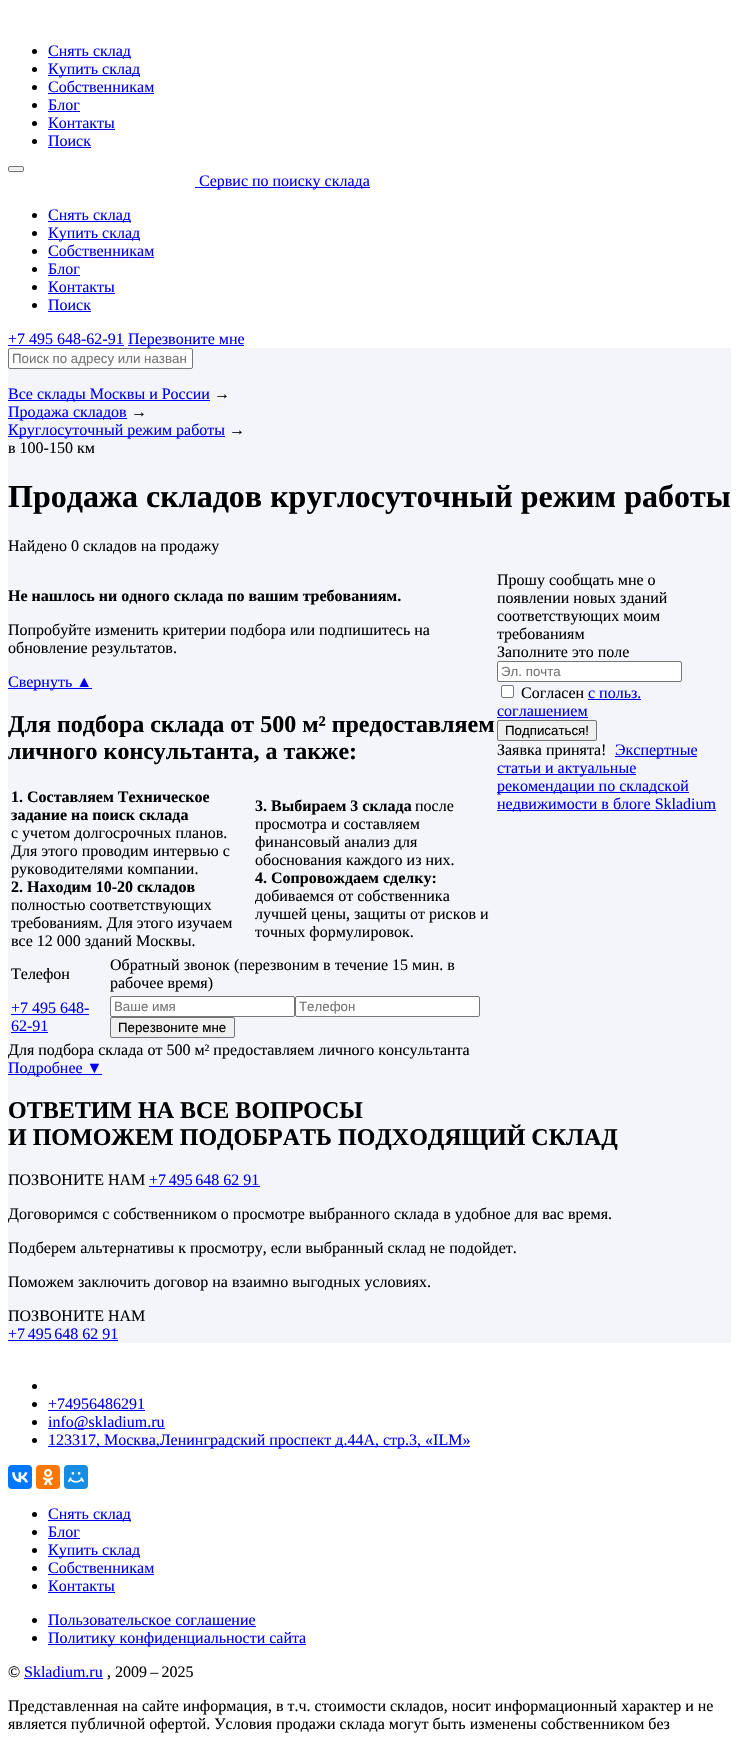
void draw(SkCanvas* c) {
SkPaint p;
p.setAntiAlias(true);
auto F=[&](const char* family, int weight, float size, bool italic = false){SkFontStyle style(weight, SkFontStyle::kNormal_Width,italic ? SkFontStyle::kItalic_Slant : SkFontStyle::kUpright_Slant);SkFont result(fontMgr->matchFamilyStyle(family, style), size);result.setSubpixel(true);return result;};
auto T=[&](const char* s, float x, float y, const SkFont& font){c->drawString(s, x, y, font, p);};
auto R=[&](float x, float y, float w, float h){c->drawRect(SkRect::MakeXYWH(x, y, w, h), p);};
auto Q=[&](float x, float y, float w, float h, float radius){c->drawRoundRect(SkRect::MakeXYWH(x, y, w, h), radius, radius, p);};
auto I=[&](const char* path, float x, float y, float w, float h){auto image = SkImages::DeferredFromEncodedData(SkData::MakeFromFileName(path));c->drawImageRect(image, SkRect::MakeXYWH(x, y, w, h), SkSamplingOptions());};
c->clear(0xffffffff);
p.setColor(0xff000000);
c->drawCircle(34.5,51.5,2.5,p);
p.setColor(0xff0000ee);
R(48,57,83,1);
auto f1 = F("Liberation Serif",400,16);
T("Снять склад",48,56,f1);
p.setColor(0xff000000);
c->drawCircle(34.5,69.5,2.5,p);
p.setColor(0xff0000ee);
R(48,75,92,1);
T("Купить склад",48,74,f1);
p.setColor(0xff000000);
c->drawCircle(34.5,87.5,2.5,p);
p.setColor(0xff0000ee);
T("Собственникам",48,92,f1);
R(48,93,106,1);
p.setColor(0xff000000);
c->drawCircle(34.5,105.5,2.5,p);
p.setColor(0xff0000ee);
T("Блог",48,110,f1);
R(48,111,32,1);
p.setColor(0xff000000);
c->drawCircle(34.5,123.5,2.5,p);
p.setColor(0xff0000ee);
T("Контакты",48,128,f1);
R(48,129,67,1);
p.setColor(0xff000000);
c->drawCircle(34.5,141.5,2.5,p);
p.setColor(0xff0000ee);
T("Поиск",48,146,f1);
R(48,147,43,1);
p.setColor(0xffefefef);
c->drawRoundRect(SkRect::MakeXYWH(8.5,166.5,15,5),1.5,1.5,p);
p.setStroke(true);
p.setStrokeWidth(1);
p.setColor(0xff767676);
c->drawRoundRect(SkRect::MakeXYWH(8.5,166.5,15,5),1.5,1.5,p);
p.setStroke(false);
p.setColor(0xff0000ee);
R(195,187,175,1);
T("Сервис по поиску склада",199,186,f1);
p.setColor(0xff000000);
c->drawCircle(34.5,215.5,2.5,p);
p.setColor(0xff0000ee);
R(48,221,83,1);
T("Снять склад",48,220,f1);
p.setColor(0xff000000);
c->drawCircle(34.5,233.5,2.5,p);
p.setColor(0xff0000ee);
R(48,239,92,1);
T("Купить склад",48,238,f1);
p.setColor(0xff000000);
c->drawCircle(34.5,251.5,2.5,p);
p.setColor(0xff0000ee);
T("Собственникам",48,256,f1);
R(48,257,106,1);
p.setColor(0xff000000);
c->drawCircle(34.5,269.5,2.5,p);
p.setColor(0xff0000ee);
T("Блог",48,274,f1);
R(48,275,32,1);
p.setColor(0xff000000);
c->drawCircle(34.5,287.5,2.5,p);
p.setColor(0xff0000ee);
T("Контакты",48,292,f1);
R(48,293,67,1);
p.setColor(0xff000000);
c->drawCircle(34.5,305.5,2.5,p);
p.setColor(0xff0000ee);
T("Поиск",48,310,f1);
R(48,311,43,1);
T("+7 495 648-62-91",8,344,f1);
R(8,345,116,1);
R(128,345,116,1);
T("Перезвоните мне",128,344,f1);
p.setColor(0xfff3f5fb);
R(8,348,723,995);
p.setColor(0xffffffff);
c->drawRoundRect(SkRect::MakeXYWH(8.5,348.5,184,20),1.5,1.5,p);
p.setStroke(true);
p.setColor(0xff767676);
c->drawRoundRect(SkRect::MakeXYWH(8.5,348.5,184,20),1.5,1.5,p);
auto f2 = F("Liberation Sans",400,13.3);
p.setStroke(false);
p.setColor(0xff757575);
T("Поиск по адресу или назван",12,363,f2);
p.setColor(0xff0000ee);
R(8,400,202,1);
T("Все склады Москвы и России",8,399,f1);
p.setColor(0xff000000);
T("→",214,399,f1);
p.setColor(0xff0000ee);
R(8,418,119,1);
T("Продажа складов",8,417,f1);
p.setColor(0xff000000);
T("→",131,417,f1);
p.setColor(0xff0000ee);
R(8,436,217,1);
T("Круглосуточный режим работы",8,435,f1);
p.setColor(0xff000000);
T("→",229,435,f1);
T("в 100-150 км",8,453,f1);
auto f3 = F("Liberation Serif",700,32);
T("Продажа складов круглосуточный режим работы",8,507,f3);
T("Найдено 0 складов на продажу",8,551,f1);
auto f4 = F("Liberation Serif",700,16);
T("Не нашлось ни одного склада по вашим требованиям.",8,601,f4);
T("Попробуйте изменить критерии подбора или подпишитесь на",8,635,f1);
T("обновление результатов.",8,653,f1);
p.setColor(0xff0000ee);
R(8,688,84,1);
T("Свернуть ▲",8,687,f1);
auto f5 = F("Liberation Serif",700,24);
p.setColor(0xff000000);
T("Для подбора склада от 500 м² предоставляем",8,732,f5);
T("личного консультанта, а также:",8,759,f5);
T("1. Составляем Техническое",11,802,f4);
T("задание на поиск склада",11,820,f4);
T("с учетом долгосрочных планов.",11,838,f1);
T("Для этого проводим интервью с",11,856,f1);
T("руководителями компании.",11,874,f1);
T("2. Находим 10-20 складов",11,892,f4);
T("полностью соответствующих",11,910,f1);
T("требованиям. Для этого изучаем",11,928,f1);
T("все 12 000 зданий Москвы.",11,946,f1);
T("3. Выбираем 3 склада",255,811,f4);
T("после",415,811,f1);
T("просмотра и составляем",255,829,f1);
T("финансовый анализ для",255,847,f1);
T("обоснования каждого из них.",255,865,f1);
T("4. Сопровождаем сделку:",255,883,f4);
T("добиваемся от собственника",255,901,f1);
T("лучшей цены, защиты от рисков и",255,919,f1);
T("точных формулировок.",255,937,f1);
T("Телефон",11,979,f1);
T("Обратный звонок (перезвоним в течение 15 мин. в",110,970,f1);
T("рабочее время)",110,988,f1);
p.setColor(0xff0000ee);
T("+7 495 648-",11,1013,f1);
R(11,1014,78,1);
T("62-91",11,1031,f1);
R(11,1032,37,1);
p.setColor(0xffffffff);
c->drawRoundRect(SkRect::MakeXYWH(110.5,996.5,184,20),1.5,1.5,p);
p.setStroke(true);
p.setColor(0xff767676);
c->drawRoundRect(SkRect::MakeXYWH(110.5,996.5,184,20),1.5,1.5,p);
p.setStroke(false);
p.setColor(0xff757575);
T("Ваше имя",114,1011,f2);
p.setColor(0xffffffff);
c->drawRoundRect(SkRect::MakeXYWH(295.5,996.5,184,20),1.5,1.5,p);
p.setStroke(true);
p.setColor(0xff767676);
c->drawRoundRect(SkRect::MakeXYWH(295.5,996.5,184,20),1.5,1.5,p);
p.setStroke(false);
p.setColor(0xff757575);
T("Телефон",299,1011,f2);
p.setColor(0xffefefef);
c->drawRoundRect(SkRect::MakeXYWH(110.5,1017.5,124,20),1.5,1.5,p);
p.setStroke(true);
p.setColor(0xff767676);
c->drawRoundRect(SkRect::MakeXYWH(110.5,1017.5,124,20),1.5,1.5,p);
p.setStroke(false);
p.setColor(0xff000000);
T("Перезвоните мне",118,1032,f2);
T("Для подбора склада от 500 м² предоставляем личного консультанта",8,1055,f1);
p.setColor(0xff0000ee);
R(8,1074,94,1);
T("Подробнее ▼",8,1073,f1);
p.setColor(0xff000000);
T("Прошу сообщать мне о",497,585,f1);
T("появлении новых зданий",497,603,f1);
T("соответствующих моим",497,621,f1);
T("требованиям",497,639,f1);
T("Заполните это поле",497,657,f1);
p.setColor(0xffffffff);
c->drawRoundRect(SkRect::MakeXYWH(497.5,661.5,184,20),1.5,1.5,p);
p.setStroke(true);
p.setColor(0xff767676);
c->drawRoundRect(SkRect::MakeXYWH(497.5,661.5,184,20),1.5,1.5,p);
p.setStroke(false);
p.setColor(0xff757575);
T("Эл. почта",501,676,f2);
p.setColor(0xffffffff);
c->drawRoundRect(SkRect::MakeXYWH(501.5,685.5,12,12),1.5,1.5,p);
p.setStroke(true);
p.setColor(0xff767676);
c->drawRoundRect(SkRect::MakeXYWH(501.5,685.5,12,12),1.5,1.5,p);
p.setStroke(false);
p.setColor(0xff000000);
T("Согласен",521,698,f1);
p.setColor(0xff0000ee);
T("с польз.",588,698,f1);
R(588,699,53,1);
T("соглашением",497,716,f1);
R(497,717,91,1);
p.setColor(0xffefefef);
c->drawRoundRect(SkRect::MakeXYWH(497.5,720.5,99,20),1.5,1.5,p);
p.setStroke(true);
p.setColor(0xff767676);
c->drawRoundRect(SkRect::MakeXYWH(497.5,720.5,99,20),1.5,1.5,p);
p.setStroke(false);
p.setColor(0xff000000);
T("Подписаться!",505,735,f2);
T("Заявка принята!",497,755,f1);
p.setColor(0xff0000ee);
R(615,756,82,1);
T("Экспертные",615,755,f1);
R(497,774,139,1);
T("статьи и актуальные",497,773,f1);
R(497,792,192,1);
T("рекомендации по складской",497,791,f1);
R(497,810,219,1);
T("недвижимости в блоге Skladium",497,809,f1);
p.setColor(0xff000000);
T("ОТВЕТИМ НА ВСЕ ВОПРОСЫ",8,1118,f5);
T("И ПОМОЖЕМ ПОДОБРАТЬ ПОДХОДЯЩИЙ СКЛАД",8,1145,f5);
T("ПОЗВОНИТЕ НАМ",8,1185,f1);
p.setColor(0xff0000ee);
T("+7 495 648 62 91",149,1185,f1);
R(149,1186,111,1);
p.setColor(0xff000000);
T("Договоримся с собственником о просмотре выбранного склада в удобное для вас время.",8,1219,f1);
T("Подберем альтернативы к просмотру, если выбранный склад не подойдет.",8,1253,f1);
T("Поможем заключить договор на взаимно выгодных условиях.",8,1287,f1);
T("ПОЗВОНИТЕ НАМ",8,1321,f1);
p.setColor(0xff0000ee);
T("+7 495 648 62 91",8,1339,f1);
R(8,1340,110,1);
p.setColor(0xff000000);
c->drawCircle(34.5,1386.5,2.5,p);
c->drawCircle(34.5,1404.5,2.5,p);
p.setColor(0xff0000ee);
T("+74956486291",48,1409,f1);
R(48,1410,97,1);
p.setColor(0xff000000);
c->drawCircle(34.5,1422.5,2.5,p);
p.setColor(0xff0000ee);
R(48,1428,117,1);
T("info@skladium.ru",48,1427,f1);
p.setColor(0xff000000);
c->drawCircle(34.5,1440.5,2.5,p);
p.setColor(0xff0000ee);
R(48,1446,422,1);
T("123317, Москва,Ленинградский проспект д.44А, стр.3, «ILM»",48,1445,f1);
p.setColor(0xff0077ff);
Q(8,1465,24,24,4);
I("1.png",12,1472,16,11);
p.setColor(0xffff7700);
Q(36,1465,24,24,4);
I("2.png",42,1469,12,16);
p.setColor(0xff168de2);
Q(64,1465,24,24,4);
I("3.png",68,1472,16,11);
p.setColor(0xff000000);
c->drawCircle(34.5,1514.5,2.5,p);
p.setColor(0xff0000ee);
R(48,1520,83,1);
T("Снять склад",48,1519,f1);
p.setColor(0xff000000);
c->drawCircle(34.5,1532.5,2.5,p);
p.setColor(0xff0000ee);
T("Блог",48,1537,f1);
R(48,1538,32,1);
p.setColor(0xff000000);
c->drawCircle(34.5,1550.5,2.5,p);
p.setColor(0xff0000ee);
R(48,1556,92,1);
T("Купить склад",48,1555,f1);
p.setColor(0xff000000);
c->drawCircle(34.5,1568.5,2.5,p);
p.setColor(0xff0000ee);
T("Собственникам",48,1573,f1);
R(48,1574,106,1);
p.setColor(0xff000000);
c->drawCircle(34.5,1586.5,2.5,p);
p.setColor(0xff0000ee);
T("Контакты",48,1591,f1);
R(48,1592,67,1);
p.setColor(0xff000000);
c->drawCircle(34.5,1620.5,2.5,p);
p.setColor(0xff0000ee);
T("Пользовательское соглашение",48,1625,f1);
R(48,1626,208,1);
p.setColor(0xff000000);
c->drawCircle(34.5,1638.5,2.5,p);
p.setColor(0xff0000ee);
R(48,1644,258,1);
T("Политику конфиденциальности сайта",48,1643,f1);
p.setColor(0xff000000);
T("©",8,1677,f1);
p.setColor(0xff0000ee);
T("Skladium.ru",24,1677,f1);
R(24,1678,79,1);
p.setColor(0xff000000);
T(", 2009 – 2025",107,1677,f1);
T("Представленная на сайте информация, в т.ч. стоимости складов, носит информационный характер и не",8,1711,f1);
T("является публичной офертой. Условия продажи склада могут быть изменены собственником без",8,1729,f1);
}
